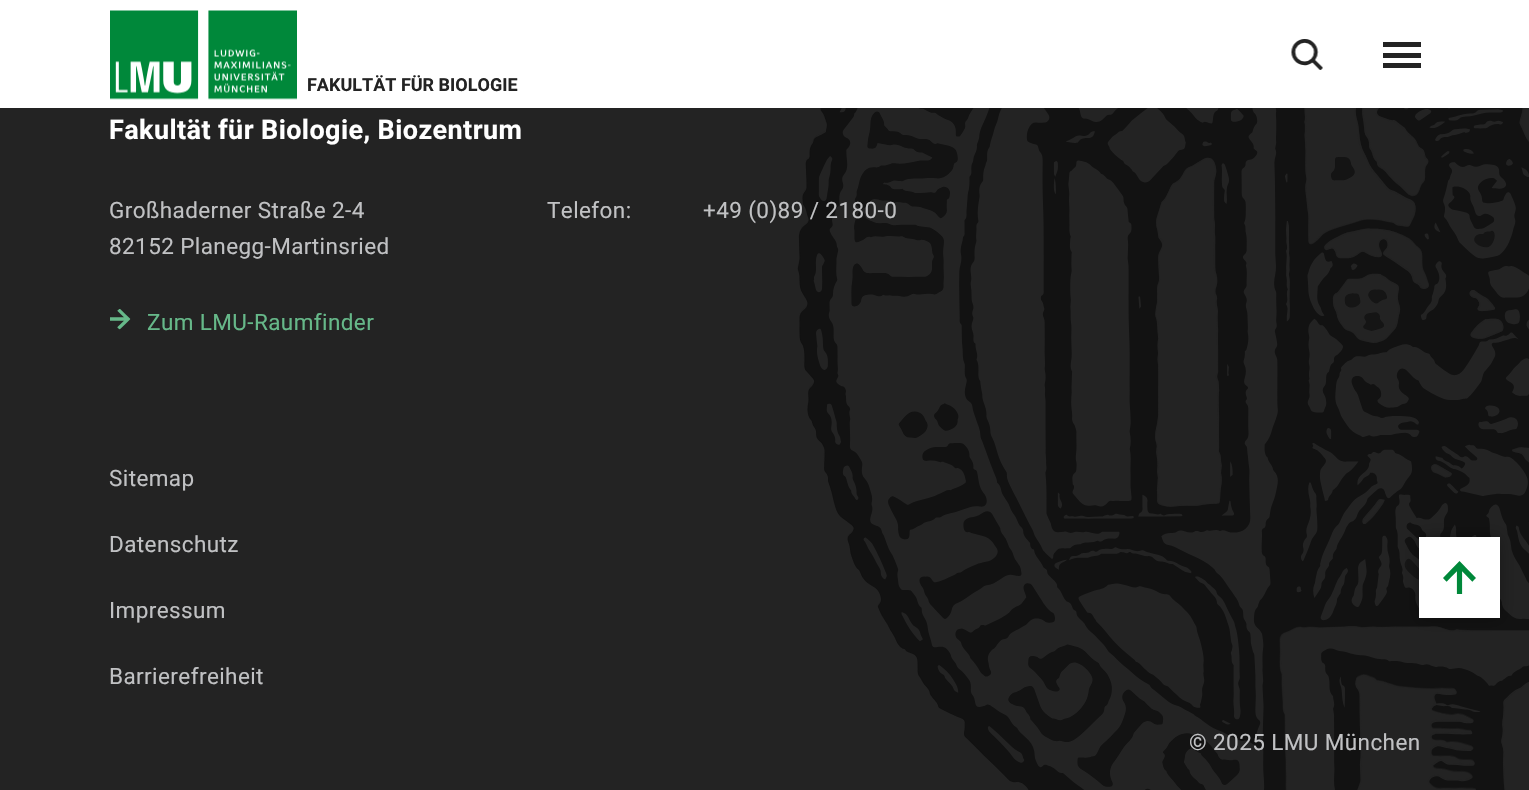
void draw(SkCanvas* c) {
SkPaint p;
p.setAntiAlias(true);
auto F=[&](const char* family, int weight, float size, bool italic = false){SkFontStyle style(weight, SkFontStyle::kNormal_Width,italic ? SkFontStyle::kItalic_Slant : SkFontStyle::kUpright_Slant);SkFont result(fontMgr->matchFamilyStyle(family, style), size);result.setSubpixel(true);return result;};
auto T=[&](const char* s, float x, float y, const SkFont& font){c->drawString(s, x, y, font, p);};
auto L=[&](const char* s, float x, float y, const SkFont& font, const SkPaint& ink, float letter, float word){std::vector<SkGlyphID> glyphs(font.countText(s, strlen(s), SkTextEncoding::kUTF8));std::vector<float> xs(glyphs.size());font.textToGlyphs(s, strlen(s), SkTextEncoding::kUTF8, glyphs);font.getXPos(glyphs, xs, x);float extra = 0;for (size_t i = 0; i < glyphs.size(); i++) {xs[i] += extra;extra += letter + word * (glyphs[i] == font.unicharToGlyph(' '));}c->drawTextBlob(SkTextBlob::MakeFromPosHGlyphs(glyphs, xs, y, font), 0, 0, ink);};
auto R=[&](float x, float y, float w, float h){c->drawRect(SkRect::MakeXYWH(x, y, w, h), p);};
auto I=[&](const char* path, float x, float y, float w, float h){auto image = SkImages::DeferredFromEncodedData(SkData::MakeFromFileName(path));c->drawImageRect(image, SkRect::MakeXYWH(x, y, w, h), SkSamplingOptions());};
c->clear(0xff232323);
p.setColor(0xffffffff);
R(0,0,1529,108);
I("1.png",110,10,187,90);
I("2.png",1291,39,32,31);
p.setColor(0xff232323);
R(1383,42,38,5);
R(1383,53,38,5);
R(1383,63,38,5);
auto f1 = F("Roboto",700,18);
T("FAKULTÄT FÜR BIOLOGIE",307,91,f1);
I("3.png",797,108,732,682);
auto f2 = F("Roboto",700,27);
p.setColor(0xffffffff);
L("Fakultät für Biologie, Biozentrum",109,139,f2,p,.4,0);
auto f3 = F("Roboto",400,22.5);
p.setColor(0xffc0c1c3);
L("Großhaderner Straße 2-4",109,218,f3,p,.4,0);
L("82152 Planegg-Martinsried",109,254,f3,p,.4,0);
L("Telefon:",547,218,f3,p,.4,0);
L("+49 (0)89 / 2180-0",703,218,f3,p,.4,0);
I("4.png",110,309,21,21);
p.setColor(0xff66b889);
L("Zum LMU-Raumfinder",147,330,f3,p,.4,0);
p.setColor(0xffc0c1c3);
L("Sitemap",109,486,f3,p,.4,0);
L("Datenschutz",109,552,f3,p,.4,0);
L("Impressum",109,618,f3,p,.4,0);
L("Barrierefreiheit",109,684,f3,p,.4,0);
L("© 2025 LMU München",1189,750,f3,p,.4,0);
p.setColor(0x4d000000);
p.setMaskFilter(SkMaskFilter::MakeBlur(kNormal_SkBlurStyle, 7.5));
c->drawRect(SkRect::MakeXYWH(1419,537,81,81),p);
p.setMaskFilter(nullptr);
p.setColor(0xffffffff);
R(1419,537,81,81);
I("5.png",1443,561,33,33);
}
